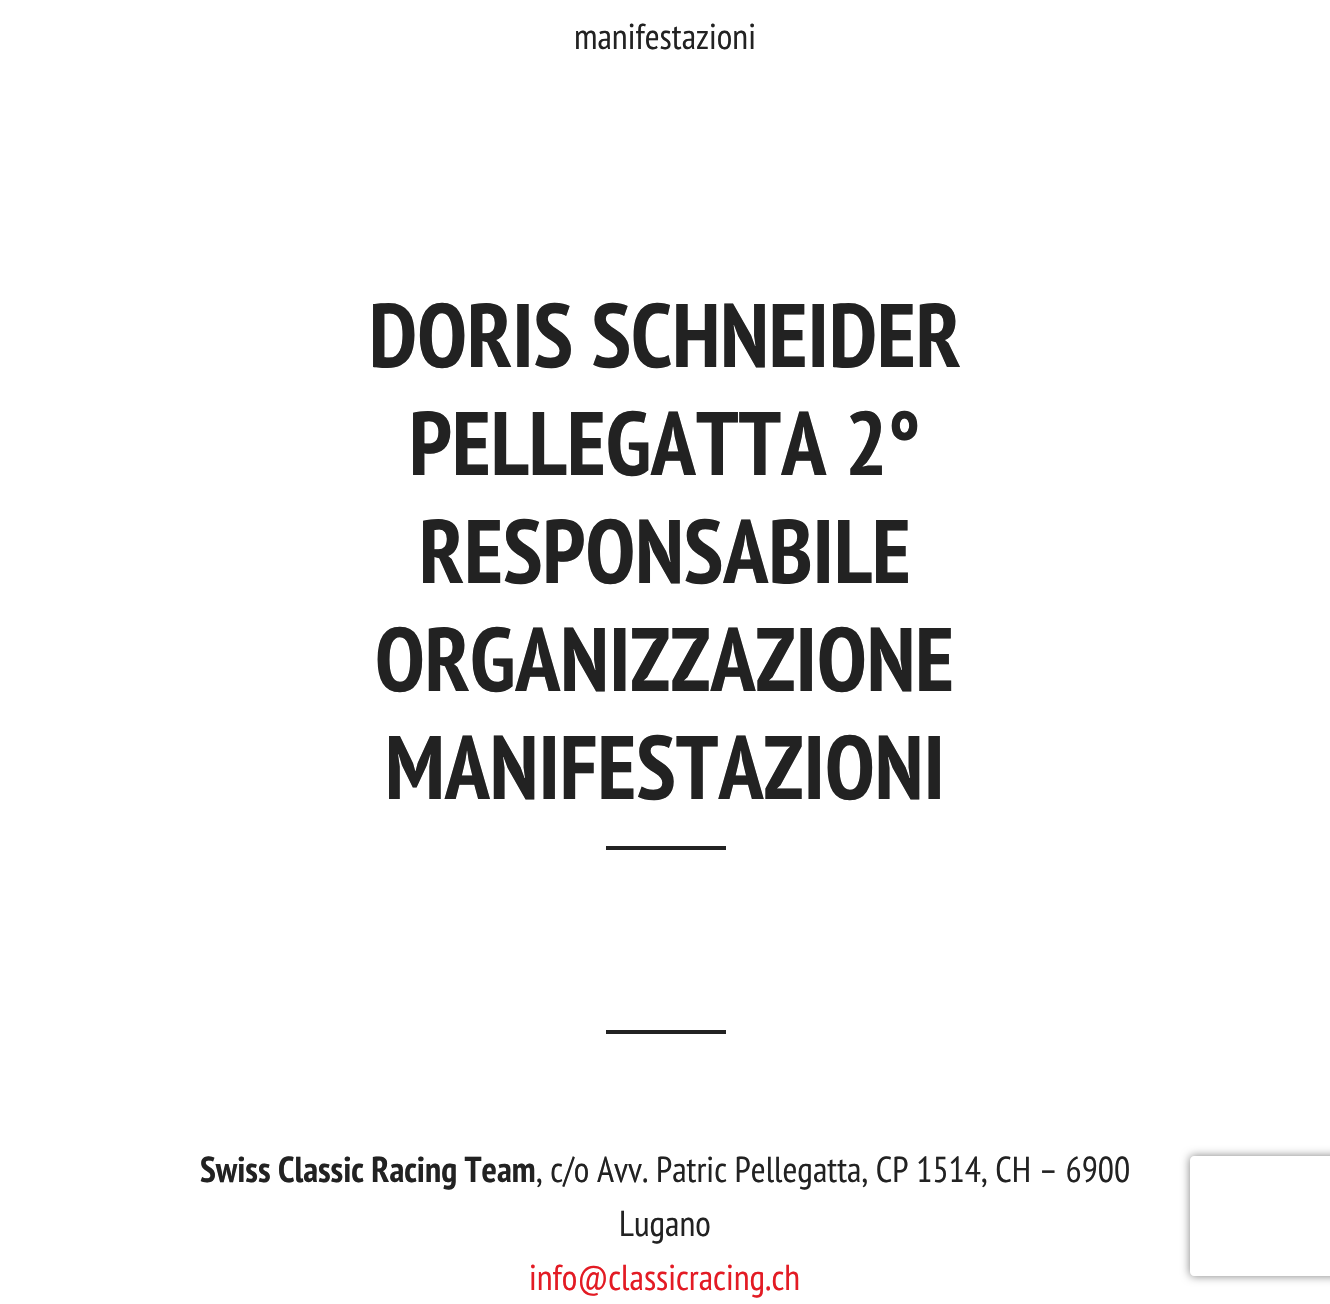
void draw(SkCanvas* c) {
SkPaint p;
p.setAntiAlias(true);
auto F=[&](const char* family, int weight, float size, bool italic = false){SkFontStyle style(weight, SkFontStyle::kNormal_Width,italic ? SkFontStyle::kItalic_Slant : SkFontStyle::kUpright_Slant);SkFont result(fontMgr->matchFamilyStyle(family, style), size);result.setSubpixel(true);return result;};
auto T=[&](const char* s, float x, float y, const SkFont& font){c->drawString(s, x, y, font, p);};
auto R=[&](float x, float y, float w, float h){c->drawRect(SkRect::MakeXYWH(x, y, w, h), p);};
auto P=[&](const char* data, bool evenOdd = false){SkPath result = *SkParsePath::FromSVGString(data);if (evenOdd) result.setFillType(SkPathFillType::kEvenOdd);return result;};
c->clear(0xffffffff);
auto f1 = F("PT Sans Narrow",400,36);
p.setColor(0xff222222);
T("manifestazioni",574,49,f1);
auto f2 = F("PT Sans Narrow",700,90);
T("DORIS SCHNEIDER",369,367,f2);
T("PELLEGATTA 2°",409,475,f2);
T("RESPONSABILE",419,583,f2);
T("ORGANIZZAZIONE",375,691,f2);
T("MANIFESTAZIONI",385,799,f2);
R(606,846,120,4);
R(606,1030,120,4);
auto f3 = F("PT Sans Narrow",700,36);
T("Swiss Classic Racing Team",200,1182,f3);
T(", c/o Avv. Patric Pellegatta, CP 1514, CH – 6900",536,1182,f1);
T("Lugano",619,1236,f1);
p.setColor(0xffe31b24);
T("info@classicracing.ch",529,1290,f1);
c->save();
c->clipPath(P("M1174 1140h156v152h-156zm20 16h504c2 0 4 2 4 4v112c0 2-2 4-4 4h-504c-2 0-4-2-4-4v-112c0-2 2-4 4-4z",true),true);
p.setColor(0xff808080);
p.setMaskFilter(SkMaskFilter::MakeBlur(kNormal_SkBlurStyle, 5));
c->drawRoundRect(SkRect::MakeXYWH(1190,1156,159,120),4,4,p);
p.setMaskFilter(nullptr);
c->restore();
}
